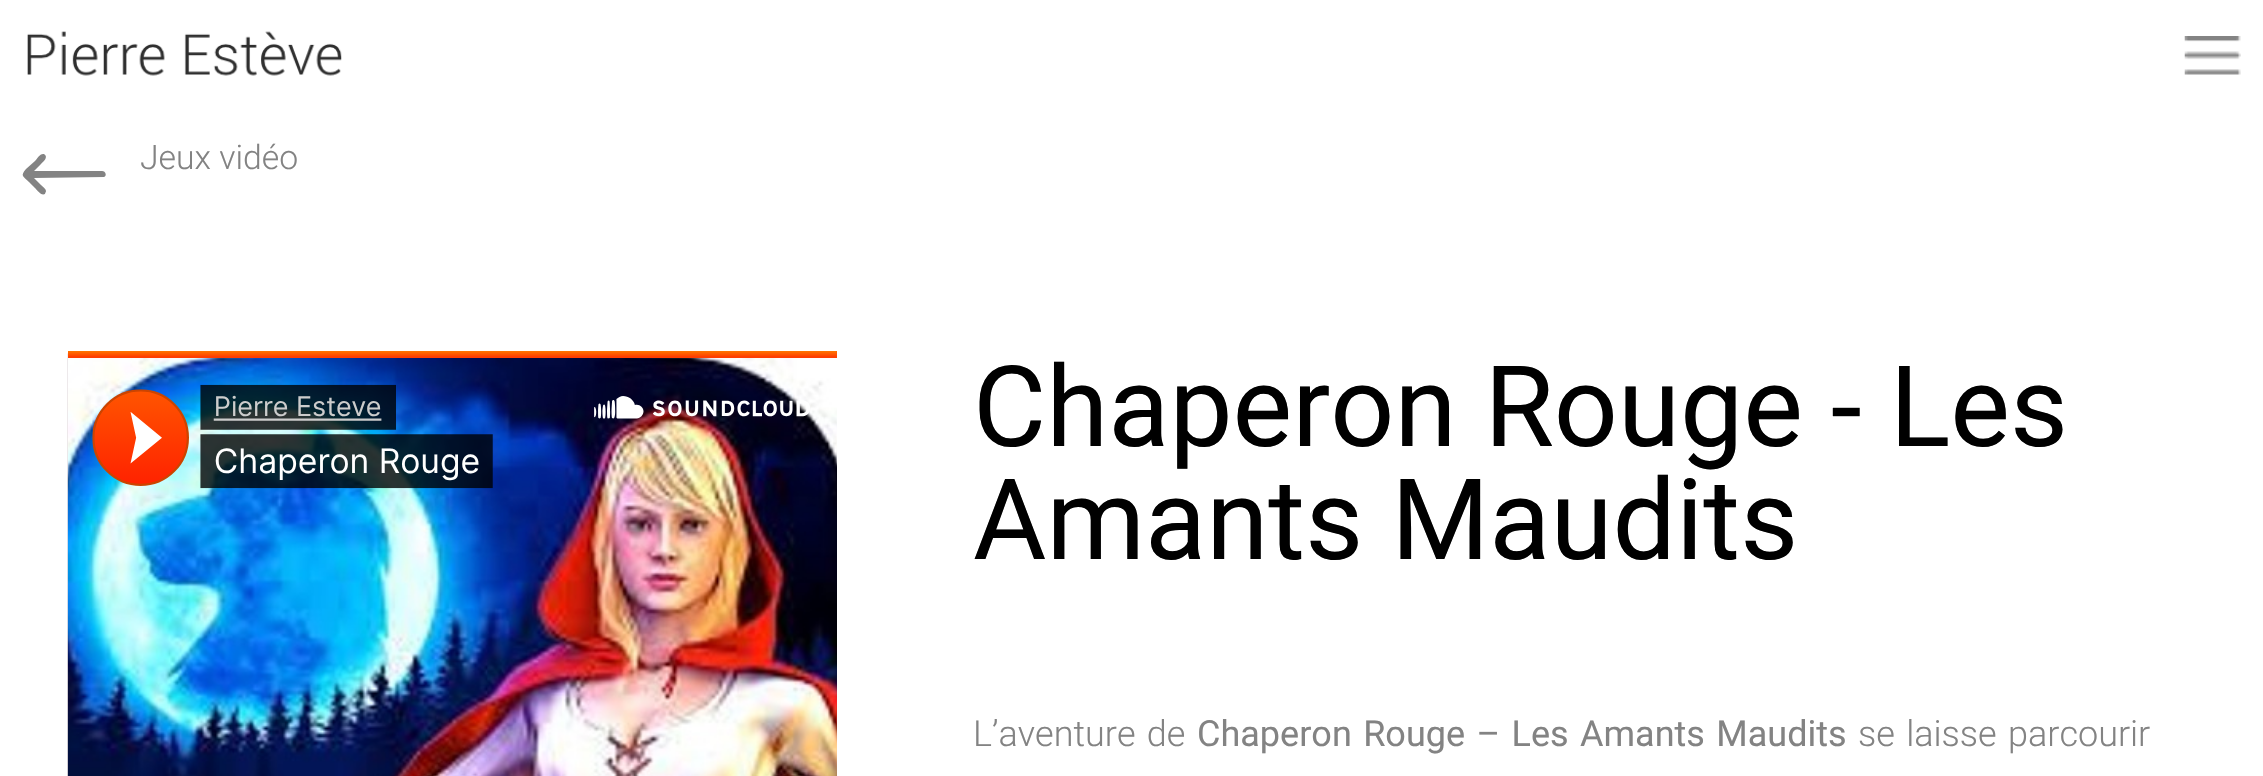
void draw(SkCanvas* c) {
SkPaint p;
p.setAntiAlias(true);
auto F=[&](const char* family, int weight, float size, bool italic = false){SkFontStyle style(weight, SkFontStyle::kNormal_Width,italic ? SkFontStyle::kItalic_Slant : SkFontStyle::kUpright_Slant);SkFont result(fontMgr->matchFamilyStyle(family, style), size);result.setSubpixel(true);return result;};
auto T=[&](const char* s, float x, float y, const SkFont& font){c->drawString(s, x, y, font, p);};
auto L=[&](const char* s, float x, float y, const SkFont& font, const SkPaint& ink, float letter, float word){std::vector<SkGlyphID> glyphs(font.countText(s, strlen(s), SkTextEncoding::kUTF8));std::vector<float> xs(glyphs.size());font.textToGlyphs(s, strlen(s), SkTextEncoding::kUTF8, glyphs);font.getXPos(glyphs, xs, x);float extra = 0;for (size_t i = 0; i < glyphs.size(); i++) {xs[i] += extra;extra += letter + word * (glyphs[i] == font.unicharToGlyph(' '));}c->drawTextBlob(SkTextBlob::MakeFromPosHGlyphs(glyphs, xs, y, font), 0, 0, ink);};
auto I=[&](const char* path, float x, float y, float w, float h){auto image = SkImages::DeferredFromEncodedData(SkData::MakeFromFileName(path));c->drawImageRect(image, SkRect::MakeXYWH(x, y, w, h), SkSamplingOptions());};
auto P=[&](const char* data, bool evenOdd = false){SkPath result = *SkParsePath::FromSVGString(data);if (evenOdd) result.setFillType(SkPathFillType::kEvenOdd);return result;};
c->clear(0xffffffff);
I("1.png",27,31,315,45);
I("2.png",2184,36,57,39);
p.setColor(0xff838383);
c->drawPath(P("M102 171h-68l7-7c2-2 8-7 3-10c-4-1-7 5-9 7l-9 8c-6 7-3 7 3 13l6 6c2 2 6 8 10 6c0-1 1-2 1-3c0-2-3-4-5-6l-7-7l70-1c3-1 2-6-2-6z"),p);
auto f1 = F("Roboto",300,33.75);
T("Jeux vidéo",140,169,f1);
I("3.png",67,351,770,425);
auto f2 = F("Roboto",400,112.5);
p.setColor(0xff000000);
T("Chaperon Rouge - Les",973,446,f2);
T("Amants Maudits",973,559,f2);
auto f3 = F("Roboto",300,36);
p.setColor(0xff838383);
L("L’aventure de",973,746,f3,p,0,2.5);
auto f4 = F("Roboto",400,36);
L("Chaperon Rouge – Les Amants Maudits",1197,746,f4,p,0,2.5);
L("se laisse parcourir",1858,746,f3,p,0,2.5);
}
